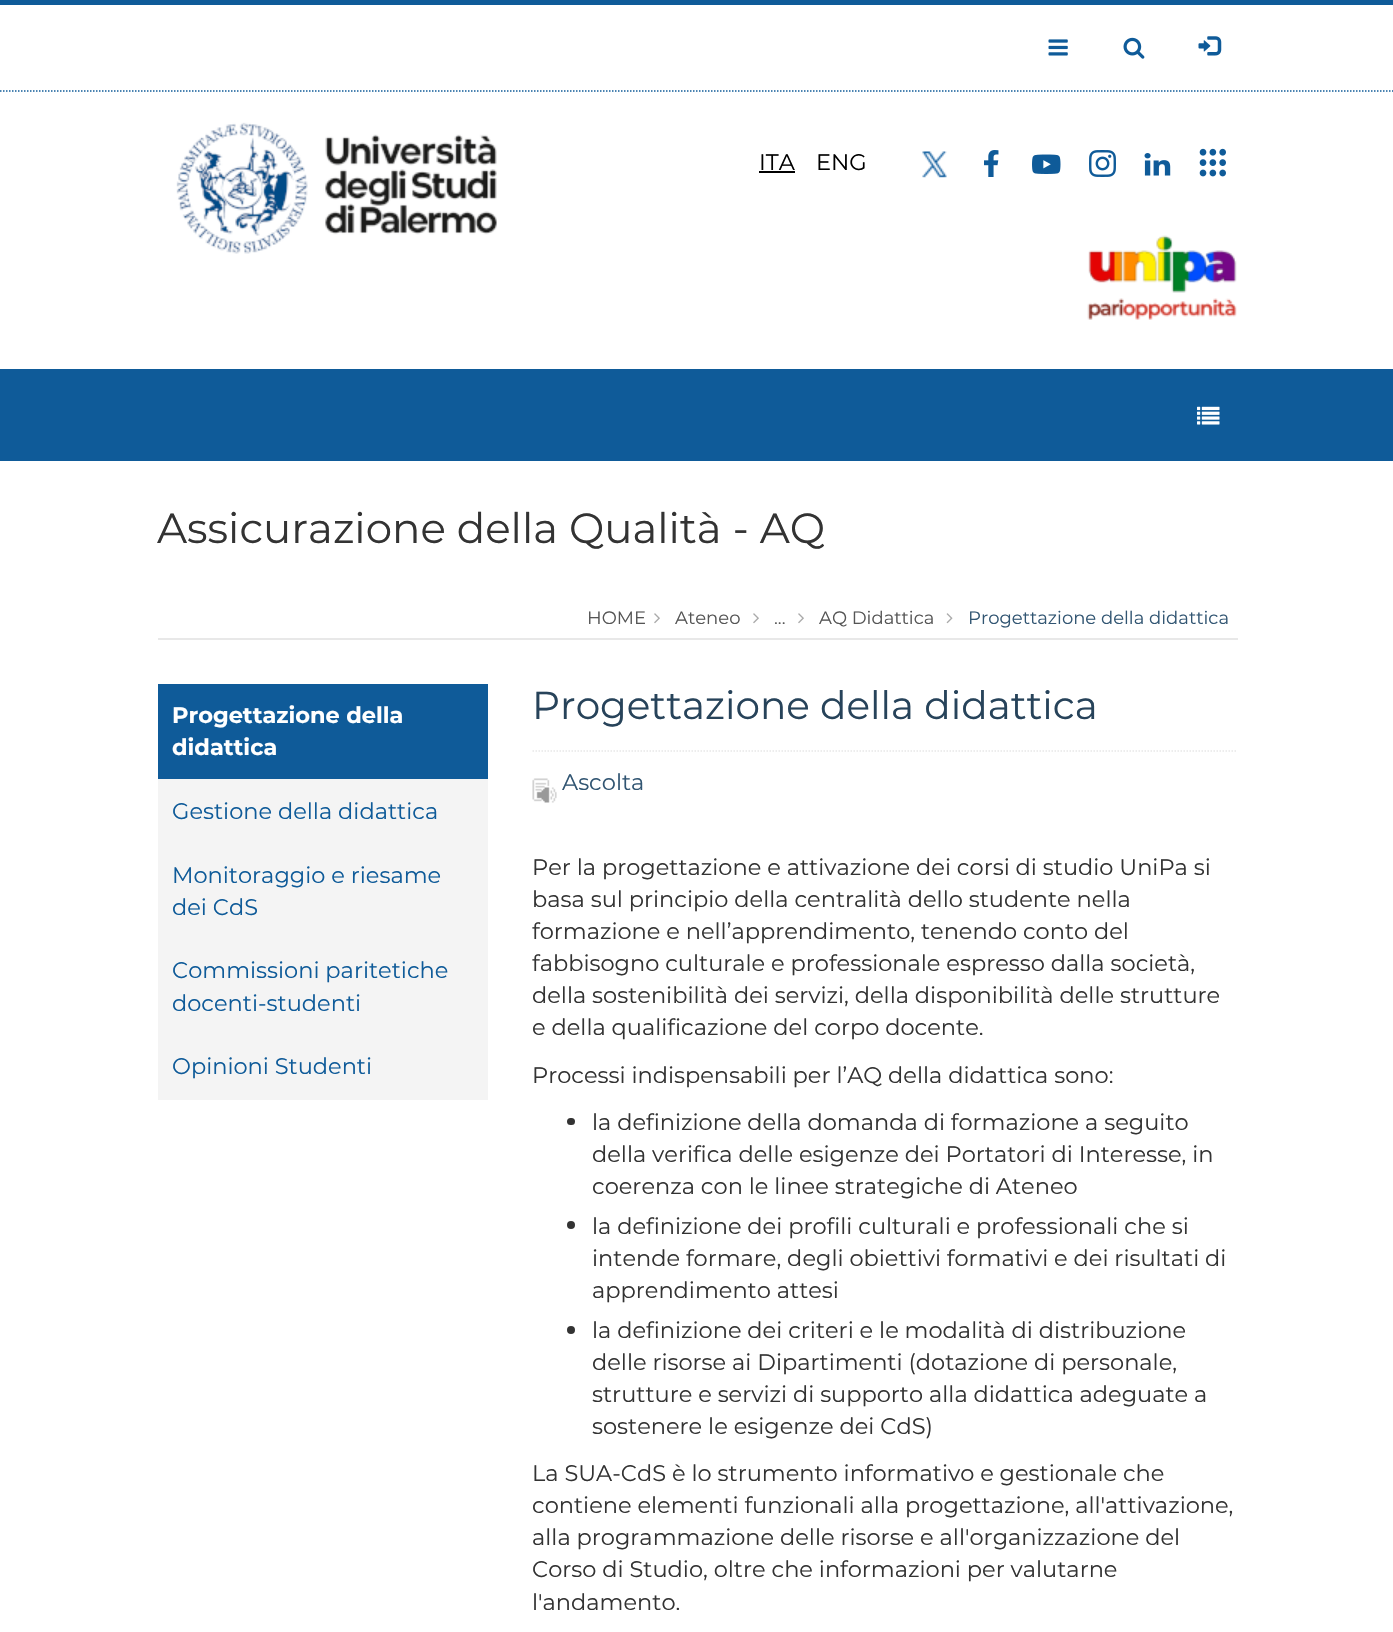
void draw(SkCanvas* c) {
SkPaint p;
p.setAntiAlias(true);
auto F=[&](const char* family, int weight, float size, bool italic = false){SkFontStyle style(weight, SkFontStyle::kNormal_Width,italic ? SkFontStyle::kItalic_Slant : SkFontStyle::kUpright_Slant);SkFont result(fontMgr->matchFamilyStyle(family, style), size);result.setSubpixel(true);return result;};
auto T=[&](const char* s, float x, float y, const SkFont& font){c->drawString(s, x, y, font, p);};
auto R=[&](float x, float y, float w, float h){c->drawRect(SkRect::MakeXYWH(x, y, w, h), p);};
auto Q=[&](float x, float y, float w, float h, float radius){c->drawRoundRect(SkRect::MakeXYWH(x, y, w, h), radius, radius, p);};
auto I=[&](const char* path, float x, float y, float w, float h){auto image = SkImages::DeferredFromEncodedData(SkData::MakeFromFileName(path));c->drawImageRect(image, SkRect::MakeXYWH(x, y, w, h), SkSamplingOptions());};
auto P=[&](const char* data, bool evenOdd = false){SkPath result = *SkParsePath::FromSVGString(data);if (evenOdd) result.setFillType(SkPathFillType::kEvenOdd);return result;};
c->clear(0xffffffff);
p.setColor(0xff0f5b99);
R(0,0,1393,5);
p.setStroke(true);
p.setStrokeWidth(1.5);
p.setPathEffect(SkDashPathEffect::Make({{1.5f,1.5f}}, 0));
c->drawPath(P("M0 91h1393.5"),p);
p.setPathEffect(nullptr);
I("1.png",1048,39,20,17);
I("2.png",1123,37,22,22);
I("3.png",1198,36,24,20);
I("4.png",176,122,321,132);
auto f1 = F("Montserrat",100,22.5);
p.setStroke(false);
p.setColor(0xff000000);
T("ITA",759,170,f1);
R(759,171,36,2);
T("ENG",816,170,f1);
I("5.png",922,151,25,27);
I("6.png",984,150,15,27);
I("7.png",1032,154,29,20);
I("8.png",1089,150,27,27);
I("9.png",1144,153,27,23);
I("10.png",1199,148,27,29);
I("11.png",1087,235,150,85);
p.setColor(0xff0f5b99);
R(0,369,1393,92);
I("12.png",1197,406,23,19);
p.setColor(0xffe8e8e8);
R(158,638,1080,2);
auto f2 = F("Montserrat",100,42);
p.setColor(0xff333333);
T("Assicurazione della Qualità - AQ",157,543,f2);
auto f3 = F("Montserrat",100,18);
p.setColor(0xff555555);
T("HOME",587,624,f3);
I("13.png",654,613,6,11);
T("Ateneo",675,624,f3);
I("13.png",753,613,6,11);
T("...",774,624,f3);
I("13.png",798,613,6,11);
T("AQ Didattica",819,624,f3);
I("14.png",946,613,7,11);
p.setColor(0xff315572);
T("Progettazione della didattica",968,624,f3);
p.setColor(0xfff4f4f4);
R(158,779,330,321);
p.setColor(0xff0f5b99);
R(158,684,330,95);
auto f4 = F("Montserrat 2",100,22.5);
p.setColor(0xffffffff);
T("Progettazione della",172,723,f4);
T("didattica",172,755,f4);
p.setColor(0xff0f5b99);
T("Gestione della didattica",172,819,f1);
T("Monitoraggio e riesame",172,883,f1);
T("dei CdS",172,915,f1);
T("Commissioni paritetiche",172,978,f1);
T("docenti-studenti",172,1011,f1);
T("Opinioni Studenti",172,1074,f1);
p.setStroke(true);
p.setColor(0xffe8e8e8);
p.setPathEffect(SkDashPathEffect::Make({{1.5f,1.5f}}, 0));
c->drawPath(P("M532.5 751h705"),p);
p.setPathEffect(nullptr);
auto f5 = F("Montserrat",100,39);
p.setStroke(false);
p.setColor(0xff27435a);
T("Progettazione della didattica",532,719,f5);
I("15.png",532,778,25,25);
p.setColor(0xff315572);
T("Ascolta",562,790,f1);
p.setColor(0xff333333);
T("Per la progettazione e attivazione dei corsi di studio UniPa si",532,875,f1);
T("basa sul principio della centralità dello studente nella",532,907,f1);
T("formazione e nell’apprendimento, tenendo conto del",532,939,f1);
T("fabbisogno culturale e professionale espresso dalla società,",532,971,f1);
T("della sostenibilità dei servizi, della disponibilità delle strutture",532,1003,f1);
T("e della qualificazione del corpo docente.",532,1035,f1);
T("Processi indispensabili per l’AQ della didattica sono:",532,1083,f1);
Q(567,1118,8,7,3.5);
T("la definizione della domanda di formazione a seguito",592,1130,f1);
T("della verifica delle esigenze dei Portatori di Interesse, in",592,1162,f1);
T("coerenza con le linee strategiche di Ateneo",592,1194,f1);
c->drawCircle(571,1225,4,p);
T("la definizione dei profili culturali e professionali che si",592,1234,f1);
T("intende formare, degli obiettivi formativi e dei risultati di",592,1266,f1);
T("apprendimento attesi",592,1298,f1);
c->drawCircle(571,1330,4,p);
T("la definizione dei criteri e le modalità di distribuzione",592,1338,f1);
T("delle risorse ai Dipartimenti (dotazione di personale,",592,1370,f1);
T("strutture e servizi di supporto alla didattica adeguate a",592,1402,f1);
T("sostenere le esigenze dei CdS)",592,1434,f1);
T("La SUA-CdS è lo strumento informativo e gestionale che",532,1481,f1);
T("contiene elementi funzionali alla progettazione, all'attivazione,",532,1513,f1);
T("alla programmazione delle risorse e all'organizzazione del",532,1545,f1);
T("Corso di Studio, oltre che informazioni per valutarne",532,1577,f1);
T("l'andamento.",532,1610,f1);
}
